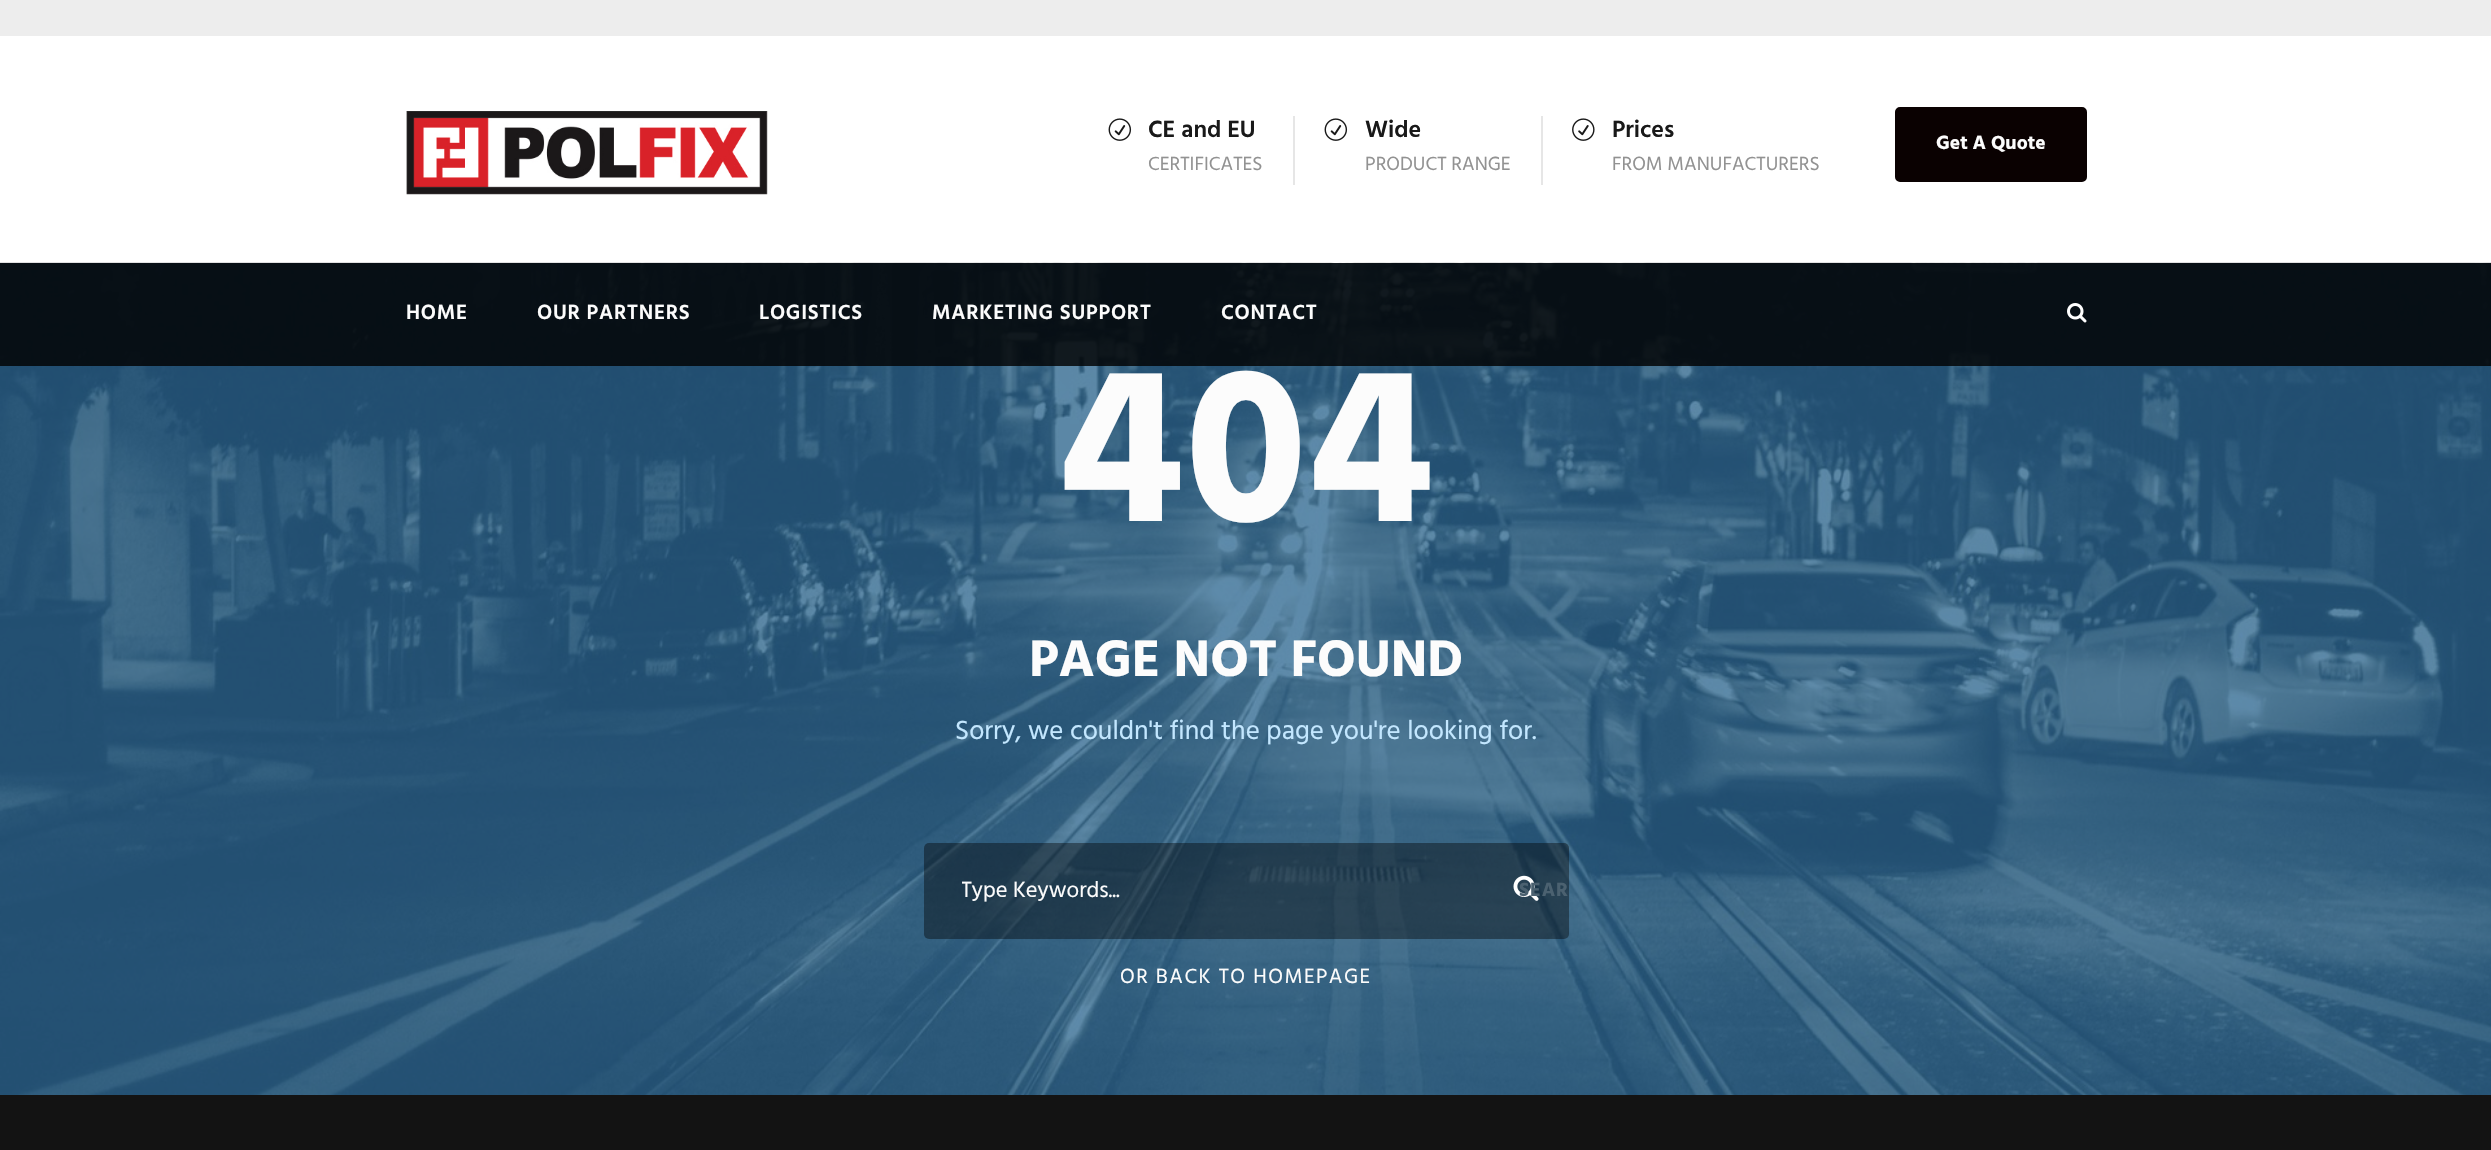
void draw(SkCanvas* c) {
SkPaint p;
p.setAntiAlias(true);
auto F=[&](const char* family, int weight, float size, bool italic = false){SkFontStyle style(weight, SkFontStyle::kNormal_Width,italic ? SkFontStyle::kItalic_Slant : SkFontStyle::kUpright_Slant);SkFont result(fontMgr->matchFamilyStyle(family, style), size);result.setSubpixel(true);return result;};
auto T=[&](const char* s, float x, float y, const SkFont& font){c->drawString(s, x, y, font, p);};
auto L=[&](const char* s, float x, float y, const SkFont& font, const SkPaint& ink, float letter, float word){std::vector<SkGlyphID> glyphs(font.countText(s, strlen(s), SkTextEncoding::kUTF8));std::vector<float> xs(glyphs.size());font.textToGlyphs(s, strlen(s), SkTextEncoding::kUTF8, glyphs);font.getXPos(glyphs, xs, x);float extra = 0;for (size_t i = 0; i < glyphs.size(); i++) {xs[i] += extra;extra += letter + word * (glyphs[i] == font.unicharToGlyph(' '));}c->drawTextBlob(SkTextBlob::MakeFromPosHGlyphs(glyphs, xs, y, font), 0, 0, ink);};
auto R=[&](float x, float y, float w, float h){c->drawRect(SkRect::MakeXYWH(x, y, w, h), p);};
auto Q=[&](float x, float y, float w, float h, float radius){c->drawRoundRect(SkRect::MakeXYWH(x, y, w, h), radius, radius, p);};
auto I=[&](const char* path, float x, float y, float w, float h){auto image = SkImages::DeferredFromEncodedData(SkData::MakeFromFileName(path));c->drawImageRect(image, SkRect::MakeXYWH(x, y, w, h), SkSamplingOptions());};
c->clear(0xffffffff);
p.setColor(0xffededed);
R(0,0,2491,36);
I("1.png",406,111,362,84);
I("2.png",1108,118,24,23);
auto f1 = F("Hind",600,24);
p.setColor(0xff191919);
T("CE and EU",1148,137,f1);
auto f2 = F("Hind",400,19.5);
p.setColor(0xff929292);
T("CERTIFICATES",1148,170,f2);
p.setColor(0xffe6e6e6);
R(1293,116,2,69);
I("2.png",1324,118,24,23);
p.setColor(0xff191919);
T("Wide",1365,137,f1);
p.setColor(0xff929292);
T("PRODUCT RANGE",1365,170,f2);
p.setColor(0xffe6e6e6);
R(1541,116,2,69);
I("3.png",1572,118,23,23);
p.setColor(0xff191919);
T("Prices",1612,137,f1);
p.setColor(0xff929292);
T("FROM MANUFACTURERS",1612,170,f2);
p.setColor(0xff0a0101);
c->drawRoundRect(SkRect::MakeXYWH(1896.5,108.5,189,72),3.5,3.5,p);
p.setStroke(true);
p.setStrokeWidth(3);
c->drawRoundRect(SkRect::MakeXYWH(1896.5,108.5,189,72),3.5,3.5,p);
auto f3 = F("Hind",700,19.5);
p.setStroke(false);
p.setColor(0xfffcfcfc);
T("Get A Quote",1936,149,f3);
p.setColor(0xff23618e);
R(0,263,2491,832);
I("5.png",0,262,2491,833);
p.setColor(0xd1000000);
R(0,263,2491,103);
auto f4 = F("Hind",600,21);
p.setColor(0xfffcfcfc);
L("HOME",406,319,f4,p,.75,0);
L("OUR PARTNERS",537,319,f4,p,.75,0);
L("LOGISTICS",759,319,f4,p,.75,0);
L("MARKETING SUPPORT",932,319,f4,p,.75,0);
L("CONTACT",1221,319,f4,p,.75,0);
I("4.png",2067,303,20,20);
auto f5 = F("Hind",700,225);
T("404",1058,521,f5);
auto f6 = F("Hind",700,52.5);
T("PAGE NOT FOUND",1029,676,f6);
auto f7 = F("Hind",400,27);
p.setColor(0xffc3e7ff);
T("Sorry, we couldn't find the page you're looking for.",955,739,f7);
p.setColor(0x66000000);
Q(924,843,645,96,5);
c->save();
c->clipRect(SkRect::MakeXYWH(962,873,517,36));
auto f8 = F("Hind",400,22.5);
p.setColor(0xfffcfcfc);
T("Type Keywords...",961,897,f8);
c->restore();
I("6.png",1513,875,26,26);
p.setColor(0xff4b6170);
L("SEAR",1519,896,f3,p,1,0);
auto f9 = F("Hind",400,21);
p.setColor(0xfffcfcfc);
L("OR BACK TO HOMEPAGE",1120,983,f9,p,1.5,0);
p.setColor(0xff131313);
R(0,1095,2491,55);
}
